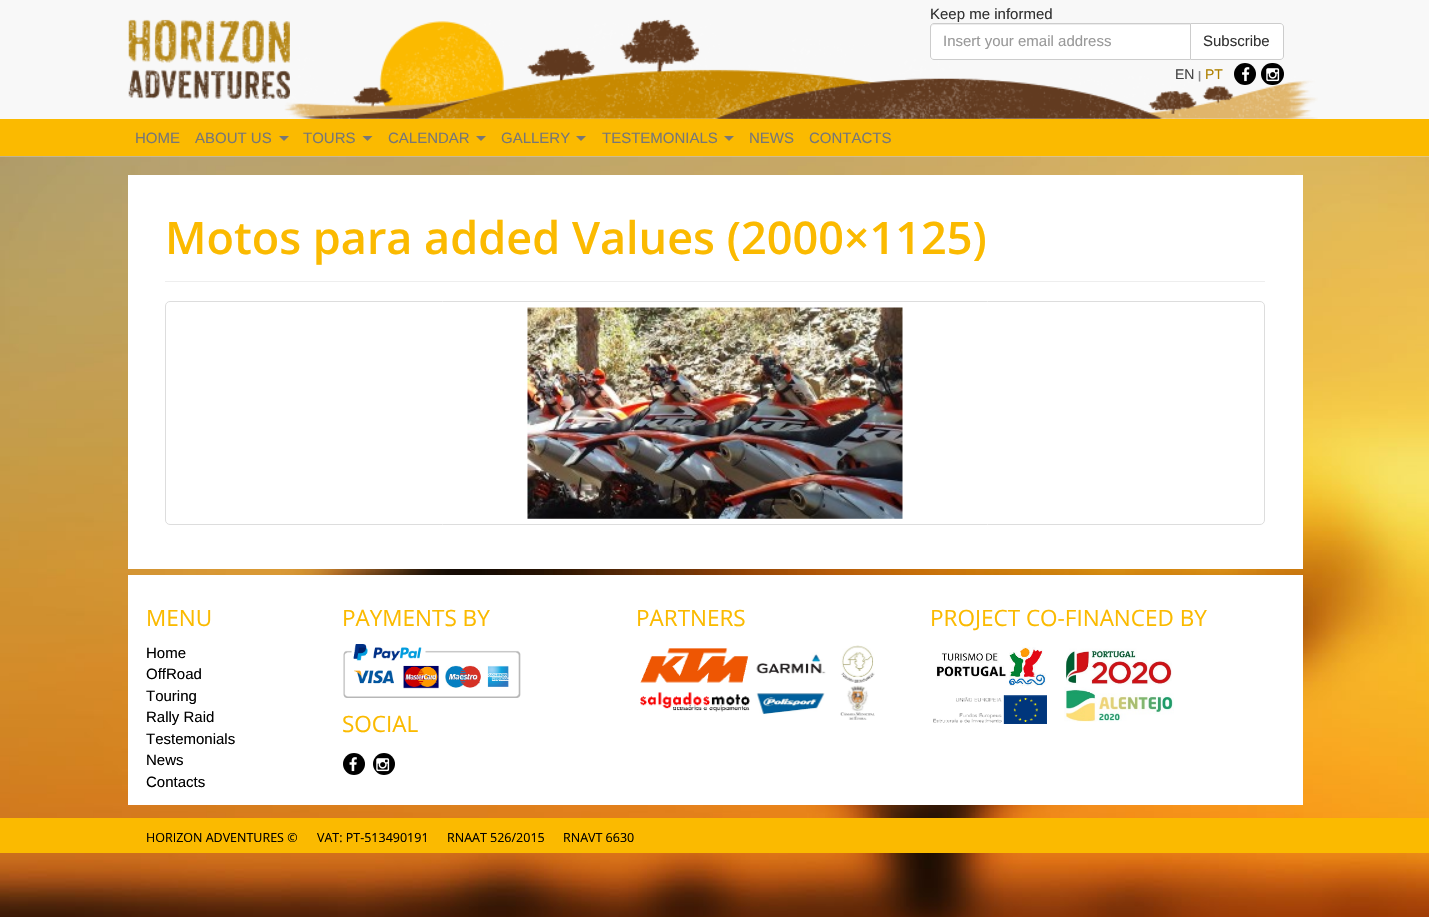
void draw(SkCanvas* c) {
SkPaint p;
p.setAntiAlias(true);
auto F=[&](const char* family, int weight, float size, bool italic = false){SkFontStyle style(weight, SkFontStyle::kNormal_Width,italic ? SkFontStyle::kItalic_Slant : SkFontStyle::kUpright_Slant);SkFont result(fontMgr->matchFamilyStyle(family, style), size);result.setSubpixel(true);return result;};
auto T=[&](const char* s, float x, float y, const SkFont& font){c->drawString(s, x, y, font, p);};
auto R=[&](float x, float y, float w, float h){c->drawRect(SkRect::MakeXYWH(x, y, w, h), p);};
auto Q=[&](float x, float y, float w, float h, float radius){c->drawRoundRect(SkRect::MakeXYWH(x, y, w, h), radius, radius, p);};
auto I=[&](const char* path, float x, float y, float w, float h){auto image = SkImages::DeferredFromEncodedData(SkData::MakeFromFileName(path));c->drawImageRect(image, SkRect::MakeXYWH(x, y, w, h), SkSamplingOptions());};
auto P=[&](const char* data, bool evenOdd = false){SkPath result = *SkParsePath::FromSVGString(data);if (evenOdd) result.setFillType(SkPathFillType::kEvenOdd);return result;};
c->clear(0xffffffff);
I("1.png",0,156,1429,761);
p.setColor(0xfff8f8f8);
R(0,0,1429,119);
I("3.png",284,19,700,100);
I("2.png",128,19,162,80);
auto f1 = F("Liberation Sans",400,15);
p.setColor(0xff333333);
T("Keep me informed",930,19,f1);
p.setColor(0xffffffff);
c->drawPath(P("M1190.5 23.5h89.5c2 0 3.5 1.5 3.5 3.5v29c0 2-1.5 3.5-3.5 3.5h-89.5z"),p);
p.setStroke(true);
p.setStrokeWidth(1);
p.setColor(0xffcccccc);
c->drawPath(P("M1190.5 23.5h89.5c2 0 3.5 1.5 3.5 3.5v29c0 2-1.5 3.5-3.5 3.5h-89.5z"),p);
p.setStroke(false);
p.setColor(0xffffffff);
c->drawPath(P("M934 23h257v37h-257c-2 0-4-2-4-4v-29c0-2 2-4 4-4z"),p);
p.setColor(0xffececec);
c->drawPath(P("M934 25h256v-1h-256c-2 0-3 1-3 2v2c0-2 1-3 3-3z"),p);
p.setStroke(true);
p.setColor(0xffcccccc);
c->drawPath(P("M934 23.5h256.5v36h-256.5c-2 0-3.5-1.5-3.5-3.5v-29c0-2 1.5-3.5 3.5-3.5z"),p);
p.setStroke(false);
p.setColor(0xff999999);
T("Insert your email address",943,46,f1);
p.setColor(0xff333333);
T("Subscribe",1203,46,f1);
I("4.png",704,76,614,43);
auto f2 = F("Liberation Sans",400,14);
p.setColor(0xff444444);
T("EN",1175,79,f2);
auto f3 = F("Liberation Sans",700,11);
p.setColor(0xff888888);
T("|",1198,79,f3);
p.setColor(0xffaf8100);
T("PT",1205,79,f2);
p.setColor(0xff000000);
c->drawCircle(1245,74,11,p);
I("5.png",1242,67,8,15);
Q(1261,63,23,22,11);
I("6.png",1266,68,14,14);
p.setColor(0xfffbba00);
R(0,119,1429,37);
p.setColor(0xff777777);
T("HOME",135,143,f1);
T("ABOUT US",195,143,f1);
c->drawPath(P("M279 136h10l-5 5z"),p);
T("TOURS",303,143,f1);
c->drawPath(P("M362.5 136h10l-5 5z"),p);
T("CALENDAR",388,143,f1);
c->drawPath(P("M476 136h10l-5 5z"),p);
T("GALLERY",501,143,f1);
c->drawPath(P("M576 136h10l-5 5z"),p);
T("TESTEMONIALS",602,143,f1);
c->drawPath(P("M724 136h10l-5 5z"),p);
T("NEWS",749,143,f1);
T("CONTACTS",809,143,f1);
p.setColor(0xffffffff);
R(128,175,1175,394);
p.setColor(0xffeeeeee);
R(165,281,1100,1);
auto f4 = F("Open Sans",600,45);
p.setColor(0xfffbba00);
T("Motos para added Values (2000×1125)",165,254,f4);
p.setStroke(true);
p.setColor(0xffdddddd);
c->drawRoundRect(SkRect::MakeXYWH(165.5,301.5,1099,223),4.5,4.5,p);
I("7.png",527,307,376,212);
p.setStroke(false);
p.setColor(0xffffffff);
R(128,575,1175,230);
auto f5 = F("Open Sans",400,22.5);
p.setColor(0xfffbba00);
T("MENU",146,626,f5);
p.setColor(0xff000000);
T("Home",146,658,f1);
T("OffRoad",146,679,f1);
T("Touring",146,701,f1);
T("Rally Raid",146,722,f1);
T("Testemonials",146,744,f1);
T("News",146,765,f1);
T("Contacts",146,787,f1);
p.setColor(0xfffbba00);
T("PAYMENTS BY",342,626,f5);
I("8.png",343,644,178,54);
T("SOCIAL",342,732,f5);
p.setColor(0xff000000);
c->drawCircle(354,764,11,p);
I("9.png",349,757,8,15);
c->drawCircle(384,764,11,p);
I("10.png",376,758,14,14);
p.setColor(0xfffbba00);
T("PARTNERS",636,626,f5);
I("11.png",640,645,235,75);
T("PROJECT CO-FINANCED BY",930,626,f5);
I("12.png",933,647,241,77);
R(0,818,1429,35);
auto f6 = F("Open Sans",400,12.5);
p.setColor(0xff000000);
T("HORIZON ADVENTURES ©",146,842,f6);
T("VAT: PT-513490191",317,842,f6);
T("RNAAT 526/2015",447,842,f6);
T("RNAVT 6630",563,842,f6);
}
